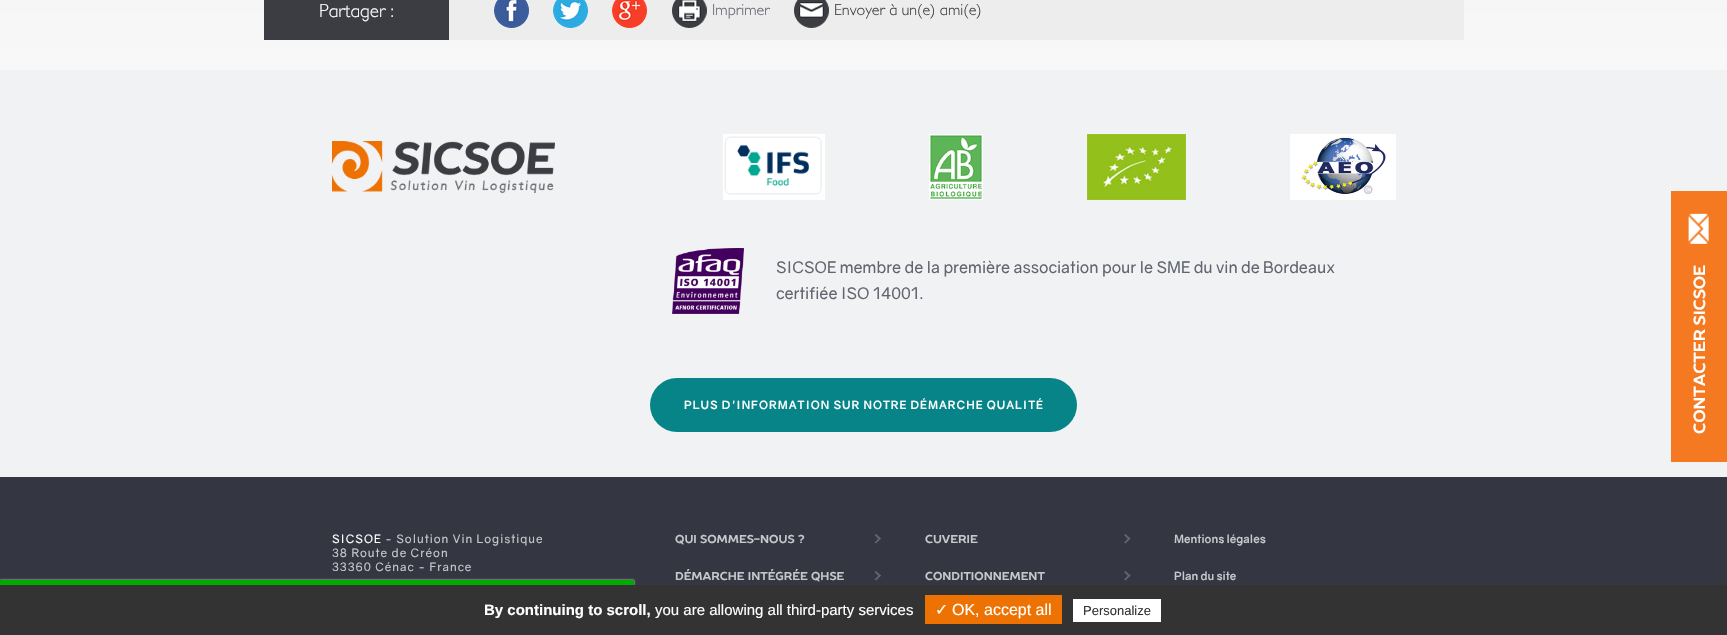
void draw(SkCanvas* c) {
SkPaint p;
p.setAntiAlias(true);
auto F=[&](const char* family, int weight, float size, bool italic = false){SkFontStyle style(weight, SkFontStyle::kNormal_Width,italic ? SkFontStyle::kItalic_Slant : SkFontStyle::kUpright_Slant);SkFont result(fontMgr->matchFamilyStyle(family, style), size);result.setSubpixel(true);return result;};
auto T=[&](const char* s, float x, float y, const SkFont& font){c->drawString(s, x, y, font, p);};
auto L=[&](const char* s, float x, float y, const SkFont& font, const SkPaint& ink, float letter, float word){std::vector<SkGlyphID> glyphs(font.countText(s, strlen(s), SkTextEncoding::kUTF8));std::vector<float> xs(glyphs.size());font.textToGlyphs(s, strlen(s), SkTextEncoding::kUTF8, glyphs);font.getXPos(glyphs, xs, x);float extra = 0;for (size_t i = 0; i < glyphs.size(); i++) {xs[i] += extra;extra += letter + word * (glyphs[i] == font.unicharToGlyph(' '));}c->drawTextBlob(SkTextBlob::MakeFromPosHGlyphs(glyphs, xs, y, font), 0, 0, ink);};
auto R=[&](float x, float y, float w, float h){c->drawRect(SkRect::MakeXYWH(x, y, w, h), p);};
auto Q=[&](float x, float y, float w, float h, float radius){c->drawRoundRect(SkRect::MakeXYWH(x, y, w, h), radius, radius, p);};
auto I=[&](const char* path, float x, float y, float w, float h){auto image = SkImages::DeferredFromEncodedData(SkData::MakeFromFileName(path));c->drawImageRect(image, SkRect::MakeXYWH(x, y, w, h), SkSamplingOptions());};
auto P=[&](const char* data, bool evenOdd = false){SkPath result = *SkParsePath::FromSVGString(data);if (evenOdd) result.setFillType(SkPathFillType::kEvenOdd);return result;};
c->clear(0xffffffff);
{
const SkColor colors[] = {0xffffffff,0xffeeeeee};
const float stops[] = {0,1};
const SkPoint ends[] = {{864,322}, {864,-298}};
p.setShader(SkGradientShader::MakeLinear(ends, colors, stops, 2, SkTileMode::kClamp));
p.setAlpha(255);
}
R(0,0,1727,70);
p.setShader(nullptr);
p.setColor(0xffededed);
R(449,0,1015,40);
p.setColor(0xff3c3d42);
R(264,0,185,40);
auto f1 = F("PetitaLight",300,19);
p.setColor(0xffffffff);
T("Partager :",319,17,f1);
I("1.png",494,0,35,28);
I("2.png",553,0,35,28);
I("3.png",612,0,35,28);
I("4.png",672,0,35,28);
auto f2 = F("PetitaLight",300,16);
p.setColor(0xff62656f);
T("Imprimer",712,15,f2);
I("5.png",794,0,35,28);
p.setColor(0xff3d3d43);
T("Envoyer à un(e) ami(e)",834,15,f2);
p.setColor(0xfff1f2f3);
R(0,70,1727,407);
p.setColor(0xfff47920);
R(1671,191,56,271);
I("6.png",1688,213,21,31);
auto f3 = F("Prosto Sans",700,16);
p.setColor(0xffffffff);
c->save();
c->rotate(-90,1705,434);
L("CONTACTER SICSOE",1705,434,f3,p,0,-1);
c->restore();
I("7.png",332,141,223,52);
I("8.png",723,134,102,66);
I("9.png",929,134,54,66);
I("10.png",1087,134,99,66);
I("11.png",1290,134,106,66);
I("12.png",672,248,72,66);
auto f4 = F("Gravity",400,16);
p.setColor(0xff62656f);
T("SICSOE membre de la première association pour le SME du vin de Bordeaux",776,273,f4);
T("certifiée ISO 14001.",776,299,f4);
p.setColor(0xff068488);
Q(650,378,427,54,27);
auto f5 = F("Gravity",700,11.3);
p.setColor(0xffffffff);
L("PLUS D'INFORMATION SUR NOTRE DÉMARCHE QUALITÉ",684,409,f5,p,1,0);
p.setColor(0xff343741);
R(0,477,1727,108);
auto f6 = F("Gravity",400,11.6);
p.setColor(0xffffffff);
L("SICSOE",332,543,f6,p,1,0);
p.setColor(0xffc7c8cd);
L("- Solution Vin Logistique",385,543,f6,p,1,0);
L("38 Route de Créon",332,557,f6,p,1,0);
L("33360 Cénac - France",332,571,f6,p,1,0);
auto f7 = F("Prosto Sans",700,11.3);
T("QUI SOMMES-NOUS ?",675,543,f7);
p.setColor(0xff62656f);
c->drawPath(P("M874.5 535l1.5-1l5 4.5l-1.5 1.5z"),p);
c->drawPath(P("M874.5 542.5l5-5l1.5 1l-5 5z"),p);
p.setColor(0xffc7c8cd);
T("CUVERIE",925,543,f7);
p.setColor(0xff62656f);
c->drawPath(P("M1124 535l1.5-1l5 4.5l-1.5 1.5z"),p);
c->drawPath(P("M1124 542.5l5-5l1.5 1l-5 5z"),p);
p.setColor(0xffc7c8cd);
T("DÉMARCHE INTÉGRÉE QHSE",675,580,f7);
p.setColor(0xff62656f);
c->drawPath(P("M874.5 572l1.5-1l5 4.5l-1.5 1.5z"),p);
c->drawPath(P("M874.5 579.5l5-5l1.5 1l-5 5z"),p);
p.setColor(0xffc7c8cd);
T("CONDITIONNEMENT",925,580,f7);
p.setColor(0xff62656f);
c->drawPath(P("M1124 572l1.5-1l5 4.5l-1.5 1.5z"),p);
c->drawPath(P("M1124 579.5l5-5l1.5 1l-5 5z"),p);
p.setColor(0xffc7c8cd);
T("Mentions légales",1174,543,f5);
T("Plan du site",1174,580,f5);
p.setColor(0xff555555);
p.setMaskFilter(SkMaskFilter::MakeBlur(kNormal_SkBlurStyle, 1));
c->drawRect(SkRect::MakeXYWH(0,581,634,5),p);
p.setMaskFilter(nullptr);
p.setColor(0xffffffff);
p.setMaskFilter(SkMaskFilter::MakeBlur(kNormal_SkBlurStyle, 1));
c->drawRect(SkRect::MakeXYWH(0,580,634,5),p);
p.setMaskFilter(nullptr);
p.setColor(0xff00aa00);
R(0,580,634,5);
p.setColor(0xff333333);
R(0,585,1727,50);
auto f8 = F("Liberation Sans",700,15);
p.setColor(0xffffffff);
T("By continuing to scroll,",484,615,f8);
auto f9 = F("Liberation Sans",400,15);
T("you are allowing all third-party services",655,615,f9);
p.setColor(0xffee7202);
R(925,595,137,29);
auto f10 = F("DejaVu Sans",400,16);
p.setColor(0xffffffff);
T("✓",935,615,f10);
auto f11 = F("Liberation Sans",400,16);
T("OK, accept all",952,615,f11);
R(1073,599,88,23);
auto f12 = F("Liberation Sans",400,13);
p.setColor(0xff333333);
T("Personalize",1083,615,f12);
}
